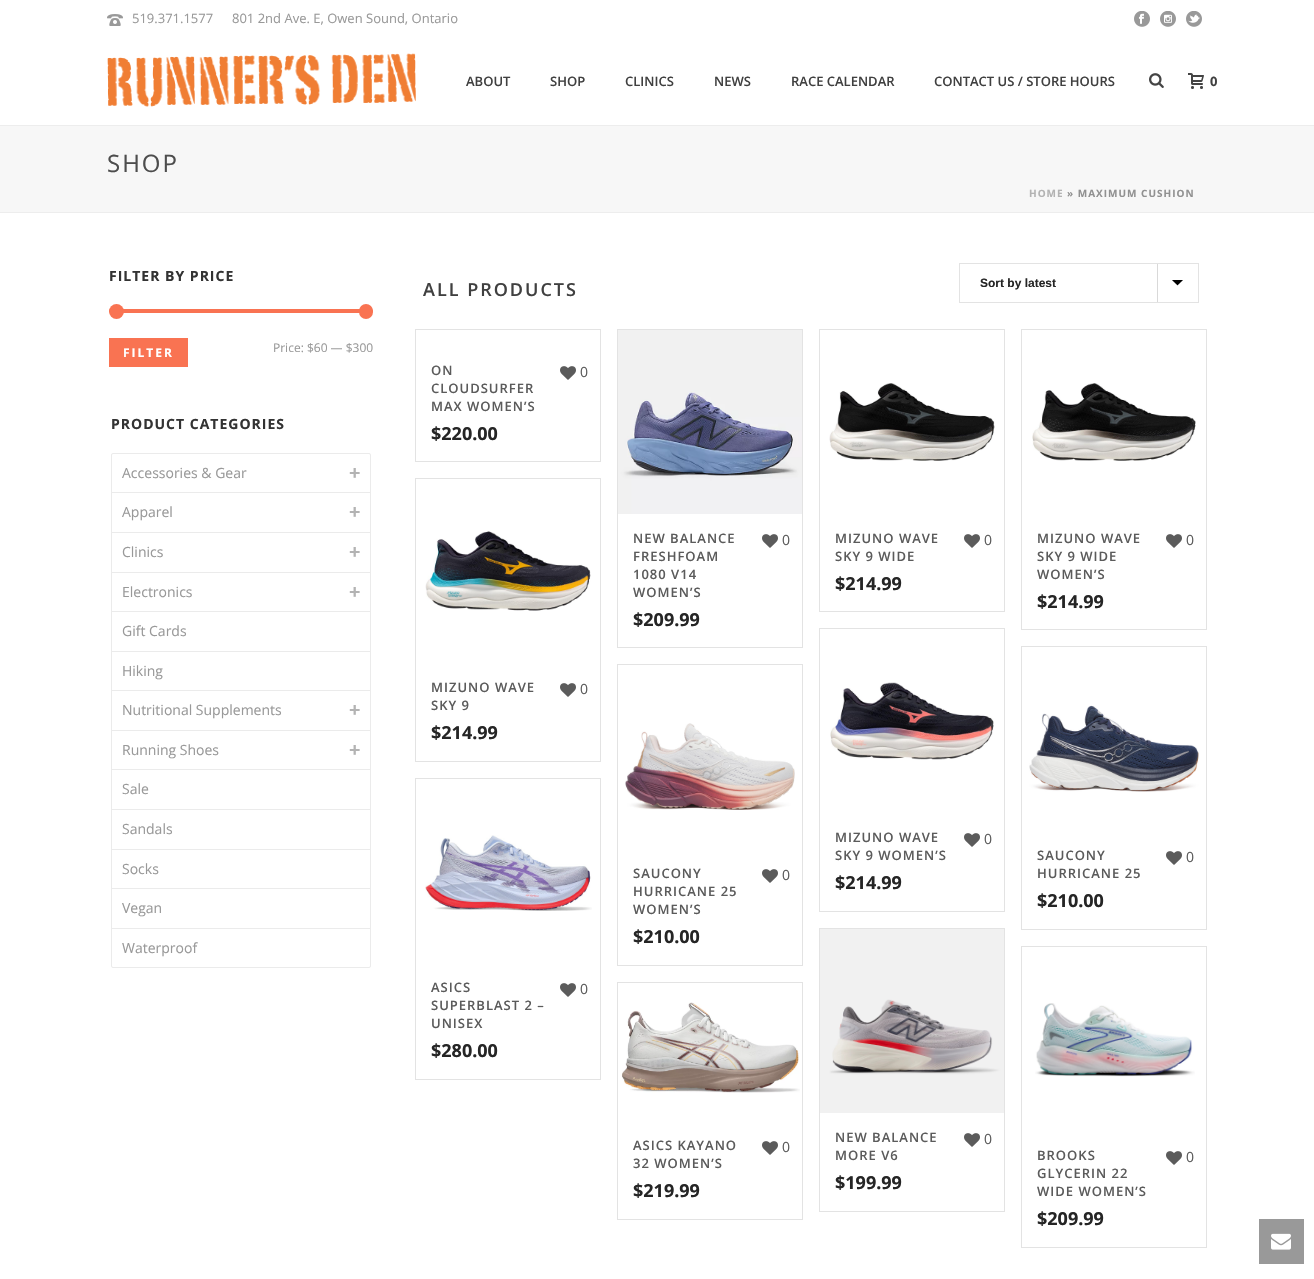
void draw(SkCanvas* c) {
SkPaint p;
p.setAntiAlias(true);
auto F=[&](const char* family, int weight, float size, bool italic = false){SkFontStyle style(weight, SkFontStyle::kNormal_Width,italic ? SkFontStyle::kItalic_Slant : SkFontStyle::kUpright_Slant);SkFont result(fontMgr->matchFamilyStyle(family, style), size);result.setSubpixel(true);return result;};
auto T=[&](const char* s, float x, float y, const SkFont& font){c->drawString(s, x, y, font, p);};
auto L=[&](const char* s, float x, float y, const SkFont& font, const SkPaint& ink, float letter, float word){std::vector<SkGlyphID> glyphs(font.countText(s, strlen(s), SkTextEncoding::kUTF8));std::vector<float> xs(glyphs.size());font.textToGlyphs(s, strlen(s), SkTextEncoding::kUTF8, glyphs);font.getXPos(glyphs, xs, x);float extra = 0;for (size_t i = 0; i < glyphs.size(); i++) {xs[i] += extra;extra += letter + word * (glyphs[i] == font.unicharToGlyph(' '));}c->drawTextBlob(SkTextBlob::MakeFromPosHGlyphs(glyphs, xs, y, font), 0, 0, ink);};
auto R=[&](float x, float y, float w, float h){c->drawRect(SkRect::MakeXYWH(x, y, w, h), p);};
auto Q=[&](float x, float y, float w, float h, float radius){c->drawRoundRect(SkRect::MakeXYWH(x, y, w, h), radius, radius, p);};
auto I=[&](const char* path, float x, float y, float w, float h){auto image = SkImages::DeferredFromEncodedData(SkData::MakeFromFileName(path));c->drawImageRect(image, SkRect::MakeXYWH(x, y, w, h), SkSamplingOptions());};
c->clear(0xffffffff);
p.setColor(0xfff7f7f7);
R(0,126,1314,86);
p.setColor(0xffededed);
R(0,212,1314,1);
I("1.png",107,14,16,12);
auto f1 = F("Open Sans",400,13);
p.setColor(0xff999999);
T("519.371.1577",132,23,f1);
T("801 2nd Ave. E, Owen Sound, Ontario",232,23,f1);
I("2.png",1134,11,16,16);
I("3.png",1160,11,16,16);
I("4.png",1186,11,16,16);
p.setColor(0xffededed);
R(0,125,1314,1);
I("5.png",107,53,309,54);
auto f2 = F("Open Sans",600,13);
p.setColor(0xff404040);
T("ABOUT",466,86,f2);
T("SHOP",550,86,f2);
T("CLINICS",625,86,f2);
T("NEWS",714,86,f2);
T("RACE CALENDAR",791,86,f2);
T("CONTACT US / STORE HOURS",934,86,f2);
I("6.png",1149,73,15,15);
I("7.png",1188,73,16,16);
auto f3 = F("Open Sans",700,13);
T("0",1210,86,f3);
auto f4 = F("Open Sans",400,24);
p.setColor(0xff4d4d4d);
L("SHOP",107,172,f4,p,2,0);
auto f5 = F("Open Sans",700,10);
p.setColor(0xffb3b3b3);
L("HOME",1029,197,f5,p,1,0);
p.setColor(0xff919191);
L("» MAXIMUM CUSHION",1067,197,f5,p,1,0);
auto f6 = F("Open Sans",700,14);
p.setColor(0xff333333);
L("FILTER BY PRICE",109,281,f6,p,1,0);
p.setColor(0xfff97352);
Q(109,309,264,4,2);
c->drawCircle(116.5,311.5,7.5,p);
Q(359,304,14,15,7);
R(109,338,79,29);
auto f7 = F("Open Sans",700,12);
p.setColor(0xffffffff);
L("FILTER",123,357,f7,p,2,0);
auto f8 = F("Open Sans",400,12);
p.setColor(0xff999999);
T("Price: $60 — $300",273,352,f8);
p.setColor(0xff333333);
L("PRODUCT CATEGORIES",111,429,f6,p,1,0);
p.setStroke(true);
p.setStrokeWidth(1);
p.setColor(0xffebebeb);
c->drawRoundRect(SkRect::MakeXYWH(111.5,453.5,259,514),1.5,1.5,p);
p.setStroke(false);
R(112,492,258,1);
auto f9 = F("Open Sans",400,14);
p.setColor(0xff999999);
T("Accessories & Gear",122,478,f9);
auto f10 = F("Open Sans",700,20);
p.setColor(0xffb3b3b3);
T("+",349,480,f10);
p.setColor(0xffebebeb);
R(112,532,258,1);
p.setColor(0xff999999);
T("Apparel",122,517,f9);
p.setColor(0xffb3b3b3);
T("+",349,519,f10);
p.setColor(0xffebebeb);
R(112,572,258,1);
p.setColor(0xff999999);
T("Clinics",122,557,f9);
p.setColor(0xffb3b3b3);
T("+",349,559,f10);
p.setColor(0xffebebeb);
R(112,611,258,1);
p.setColor(0xff999999);
T("Electronics",122,597,f9);
p.setColor(0xffb3b3b3);
T("+",349,599,f10);
p.setColor(0xffebebeb);
R(112,651,258,1);
p.setColor(0xff999999);
T("Gift Cards",122,636,f9);
p.setColor(0xffebebeb);
R(112,690,258,1);
p.setColor(0xff999999);
T("Hiking",122,676,f9);
p.setColor(0xffebebeb);
R(112,730,258,1);
p.setColor(0xff999999);
T("Nutritional Supplements",122,715,f9);
p.setColor(0xffb3b3b3);
T("+",349,717,f10);
p.setColor(0xffebebeb);
R(112,769,258,1);
p.setColor(0xff999999);
T("Running Shoes",122,755,f9);
p.setColor(0xffb3b3b3);
T("+",349,757,f10);
p.setColor(0xffebebeb);
R(112,809,258,1);
p.setColor(0xff999999);
T("Sale",122,794,f9);
p.setColor(0xffebebeb);
R(112,849,258,1);
p.setColor(0xff999999);
T("Sandals",122,834,f9);
p.setColor(0xffebebeb);
R(112,888,258,1);
p.setColor(0xff999999);
T("Socks",122,874,f9);
p.setColor(0xffebebeb);
R(112,928,258,1);
p.setColor(0xff999999);
T("Vegan",122,913,f9);
T("Waterproof",122,953,f9);
auto f11 = F("Open Sans",600,18);
p.setColor(0xff404040);
L("ALL PRODUCTS",423,296,f11,p,2,0);
I("8.png",1157,264,26,38);
p.setStroke(true);
p.setColor(0xffe3e3e3);
c->drawRect(SkRect::MakeXYWH(959.5,263.5,239,39),p);
auto f12 = F("Liberation Sans",700,12);
p.setStroke(false);
p.setColor(0xff252525);
T("Sort by latest",980,287,f12);
p.setStroke(true);
p.setColor(0xffe3e3e3);
c->drawRect(SkRect::MakeXYWH(415.5,329.5,185,132),p);
p.setStroke(false);
p.setColor(0xff5b5b5b);
L("ON",431,375,f2,p,1,0);
L("CLOUDSURFER",431,393,f2,p,1,0);
L("MAX WOMEN’S",431,411,f2,p,1,0);
I("9.png",560,366,16,14);
T("0",580,377,f9);
auto f13 = F("Open Sans",700,18);
p.setColor(0xff252525);
T("$220.00",431,440,f13);
p.setStroke(true);
p.setColor(0xffe3e3e3);
c->drawRect(SkRect::MakeXYWH(617.5,329.5,185,318),p);
I("10.png",618,330,184,184);
p.setStroke(false);
p.setColor(0xff5b5b5b);
L("NEW BALANCE",633,543,f2,p,1,0);
L("FRESHFOAM",633,561,f2,p,1,0);
L("1080 V14",633,579,f2,p,1,0);
L("WOMEN’S",633,597,f2,p,1,0);
I("9.png",762,534,16,14);
T("0",782,545,f9);
p.setColor(0xff252525);
T("$209.99",633,626,f13);
p.setStroke(true);
p.setColor(0xffe3e3e3);
c->drawRect(SkRect::MakeXYWH(819.5,329.5,185,282),p);
I("11.png",829,383,166,78);
p.setStroke(false);
p.setColor(0xff5b5b5b);
L("MIZUNO WAVE",835,543,f2,p,1,0);
L("SKY 9 WIDE",835,561,f2,p,1,0);
I("9.png",964,534,16,14);
T("0",984,545,f9);
p.setColor(0xff252525);
T("$214.99",835,590,f13);
p.setStroke(true);
p.setColor(0xffe3e3e3);
c->drawRect(SkRect::MakeXYWH(1021.5,329.5,185,300),p);
I("12.png",1032,383,164,78);
p.setStroke(false);
p.setColor(0xff5b5b5b);
L("MIZUNO WAVE",1037,543,f2,p,1,0);
L("SKY 9 WIDE",1037,561,f2,p,1,0);
L("WOMEN’S",1037,579,f2,p,1,0);
I("9.png",1166,534,16,14);
T("0",1186,545,f9);
p.setColor(0xff252525);
T("$214.99",1037,608,f13);
p.setStroke(true);
p.setColor(0xffe3e3e3);
c->drawRect(SkRect::MakeXYWH(415.5,478.5,185,283),p);
I("13.png",425,531,166,80);
p.setStroke(false);
p.setColor(0xff5b5b5b);
L("MIZUNO WAVE",431,692,f2,p,1,0);
L("SKY 9",431,710,f2,p,1,0);
I("9.png",560,683,16,14);
T("0",580,694,f9);
p.setColor(0xff252525);
T("$214.99",431,739,f13);
p.setStroke(true);
p.setColor(0xffe3e3e3);
c->drawRect(SkRect::MakeXYWH(617.5,664.5,185,301),p);
I("14.png",625,723,170,87);
p.setStroke(false);
p.setColor(0xff5b5b5b);
L("SAUCONY",633,878,f2,p,1,0);
L("HURRICANE 25",633,896,f2,p,1,0);
L("WOMEN’S",633,914,f2,p,1,0);
I("9.png",762,869,16,14);
T("0",782,880,f9);
p.setColor(0xff252525);
T("$210.00",633,943,f13);
p.setStroke(true);
p.setColor(0xffe3e3e3);
c->drawRect(SkRect::MakeXYWH(819.5,628.5,185,283),p);
I("15.png",830,682,164,78);
p.setStroke(false);
p.setColor(0xff5b5b5b);
L("MIZUNO WAVE",835,842,f2,p,1,0);
L("SKY 9 WOMEN’S",835,860,f2,p,1,0);
I("9.png",964,833,16,14);
T("0",984,844,f9);
p.setColor(0xff252525);
T("$214.99",835,889,f13);
p.setStroke(true);
p.setColor(0xffe3e3e3);
c->drawRect(SkRect::MakeXYWH(1021.5,646.5,185,283),p);
I("16.png",1029,705,170,87);
p.setStroke(false);
p.setColor(0xff5b5b5b);
L("SAUCONY",1037,860,f2,p,1,0);
L("HURRICANE 25",1037,878,f2,p,1,0);
I("9.png",1166,851,16,14);
T("0",1186,862,f9);
p.setColor(0xff252525);
T("$210.00",1037,907,f13);
p.setStroke(true);
p.setColor(0xffe3e3e3);
c->drawRect(SkRect::MakeXYWH(415.5,778.5,185,301),p);
I("17.png",425,835,167,76);
p.setStroke(false);
p.setColor(0xff5b5b5b);
L("ASICS",431,992,f2,p,1,0);
L("SUPERBLAST 2 –",431,1010,f2,p,1,0);
L("UNISEX",431,1028,f2,p,1,0);
I("9.png",560,983,16,14);
T("0",580,994,f9);
p.setColor(0xff252525);
T("$280.00",431,1057,f13);
p.setStroke(true);
p.setColor(0xffe3e3e3);
c->drawRect(SkRect::MakeXYWH(617.5,982.5,185,237),p);
I("18.png",621,1002,179,91);
p.setStroke(false);
p.setColor(0xff5b5b5b);
L("ASICS KAYANO",633,1150,f2,p,1,0);
L("32 WOMEN’S",633,1168,f2,p,1,0);
I("9.png",762,1141,16,14);
T("0",782,1152,f9);
p.setColor(0xff252525);
T("$219.99",633,1197,f13);
p.setStroke(true);
p.setColor(0xffe3e3e3);
c->drawRect(SkRect::MakeXYWH(819.5,928.5,185,283),p);
I("19.png",820,929,184,184);
p.setStroke(false);
p.setColor(0xff5b5b5b);
L("NEW BALANCE",835,1142,f2,p,1,0);
L("MORE V6",835,1160,f2,p,1,0);
I("9.png",964,1133,16,14);
T("0",984,1144,f9);
p.setColor(0xff252525);
T("$199.99",835,1189,f13);
p.setStroke(true);
p.setColor(0xffe3e3e3);
c->drawRect(SkRect::MakeXYWH(1021.5,946.5,185,301),p);
I("20.png",1035,1003,160,74);
p.setStroke(false);
p.setColor(0xff5b5b5b);
L("BROOKS",1037,1160,f2,p,1,0);
L("GLYCERIN 22",1037,1178,f2,p,1,0);
L("WIDE WOMEN’S",1037,1196,f2,p,1,0);
I("9.png",1166,1151,16,14);
T("0",1186,1162,f9);
p.setColor(0xff252525);
T("$209.99",1037,1225,f13);
p.setColor(0xff999999);
R(1259,1219,45,45);
I("21.png",1271,1233,20,17);
}
